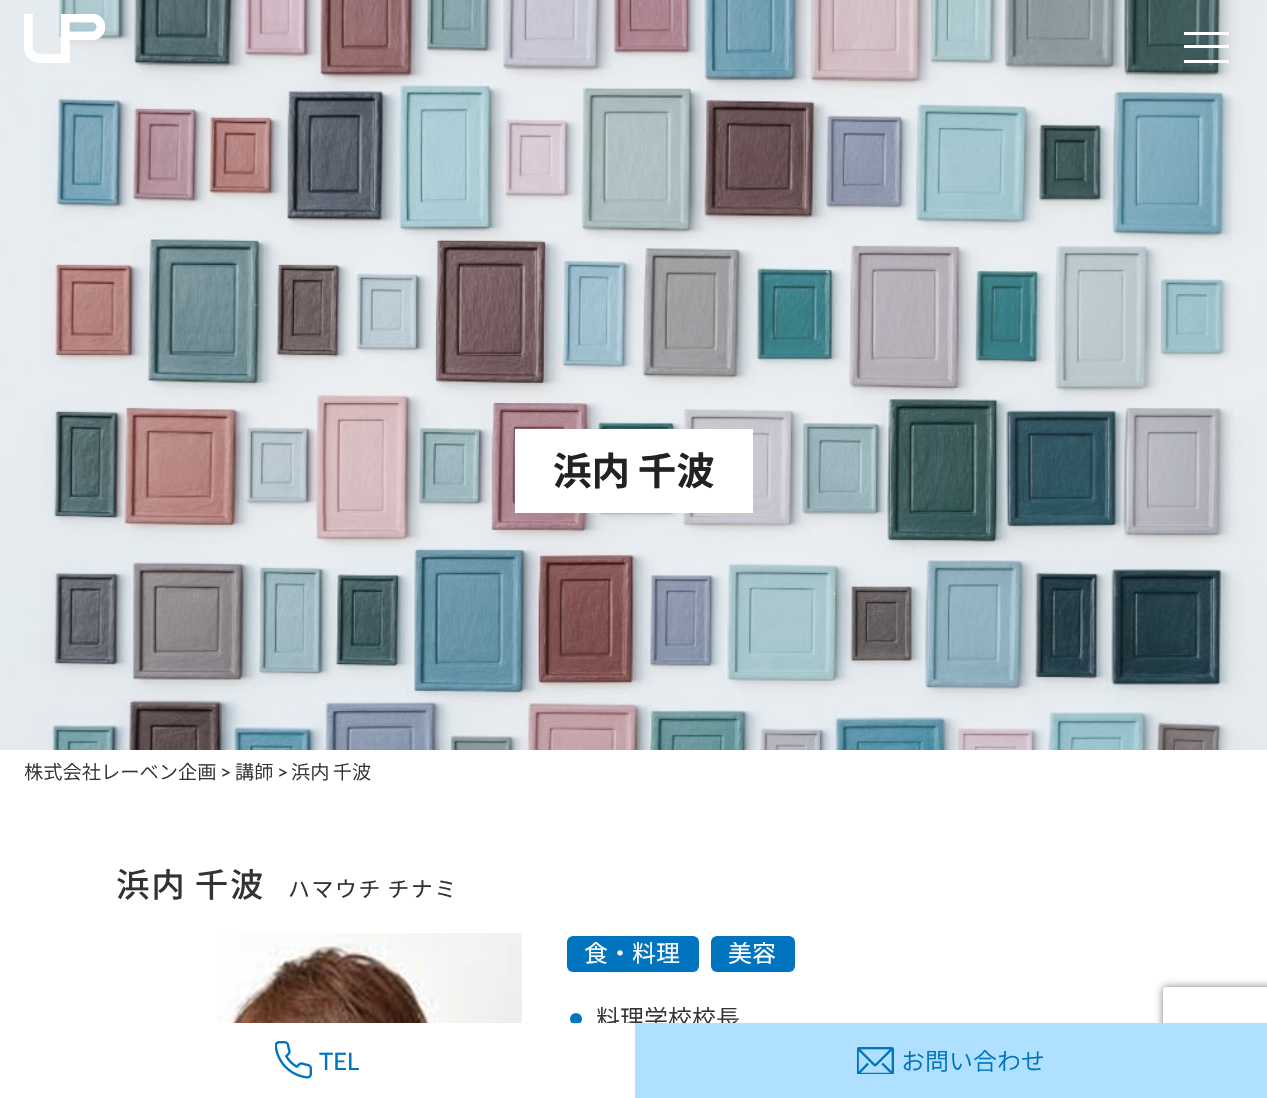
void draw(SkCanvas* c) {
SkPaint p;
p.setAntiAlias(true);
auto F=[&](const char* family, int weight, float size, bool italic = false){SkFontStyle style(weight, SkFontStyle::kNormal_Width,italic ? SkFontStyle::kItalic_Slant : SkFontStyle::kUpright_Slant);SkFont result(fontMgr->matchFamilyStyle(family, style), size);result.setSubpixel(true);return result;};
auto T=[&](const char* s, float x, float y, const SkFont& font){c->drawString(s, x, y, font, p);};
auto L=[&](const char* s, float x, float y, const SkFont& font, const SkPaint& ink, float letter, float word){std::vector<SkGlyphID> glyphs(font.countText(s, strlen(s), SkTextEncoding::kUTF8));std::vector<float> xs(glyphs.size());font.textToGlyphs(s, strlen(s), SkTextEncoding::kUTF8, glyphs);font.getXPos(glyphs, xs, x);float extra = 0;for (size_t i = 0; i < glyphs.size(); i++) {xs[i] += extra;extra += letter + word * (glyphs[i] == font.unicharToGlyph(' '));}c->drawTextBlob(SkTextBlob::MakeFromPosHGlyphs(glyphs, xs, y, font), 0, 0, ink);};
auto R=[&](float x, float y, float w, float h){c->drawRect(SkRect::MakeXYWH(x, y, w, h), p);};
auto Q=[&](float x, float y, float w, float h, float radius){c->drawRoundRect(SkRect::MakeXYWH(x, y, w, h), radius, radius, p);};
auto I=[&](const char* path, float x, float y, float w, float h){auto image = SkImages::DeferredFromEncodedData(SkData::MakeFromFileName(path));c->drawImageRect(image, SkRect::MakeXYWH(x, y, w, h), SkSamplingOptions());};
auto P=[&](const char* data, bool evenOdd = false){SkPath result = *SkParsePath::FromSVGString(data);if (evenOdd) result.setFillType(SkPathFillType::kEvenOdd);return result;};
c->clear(0xffffffff);
I("2.png",0,0,1267,750);
I("1.png",24,14,81,49);
p.setColor(0xffffffff);
R(1184,32,45,3);
R(1184,45,45,3);
R(1184,60,45,3);
R(515,429,238,84);
auto f1 = F("Noto Sans JP",700,38.5);
p.setColor(0xff222222);
L("浜内 千波",553,485,f1,p,0,-1);
auto f2 = F("Noto Sans JP",300,19.25);
p.setColor(0xff333333);
T("株式会社レーベン企画",24,779,f2);
auto f3 = F("Lato",400,19.25);
T(">",220,779,f3);
T("講師",235,779,f2);
T(">",277,779,f3);
L("浜内 千波",291,779,f2,p,0,-1);
auto f4 = F("Noto Sans JP",500,33.5);
L("浜内 千波",116,897,f4,p,1.75,-1);
auto f5 = F("Noto Sans JP",400,21.75);
L("ハマウチ チナミ",288,897,f5,p,1.75,-1);
I("3.png",217,933,305,90);
p.setColor(0xff0074be);
Q(567,936,132,36,6);
auto f6 = F("Noto Sans JP",400,24);
p.setColor(0xffffffff);
T("食・料理",584,962,f6);
p.setColor(0xff0074be);
Q(711,936,84,36,6);
p.setColor(0xffffffff);
T("美容",728,962,f6);
p.setColor(0xff0074be);
c->drawCircle(576,1019,6,p);
auto f7 = F("Noto Sans JP",300,24);
p.setColor(0xff333333);
T("料理学校校長",596,1027,f7);
c->save();
c->clipPath(P("M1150 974h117v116h-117zm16 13h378c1.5 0 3 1.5 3 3v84c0 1.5-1.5 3-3 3h-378c-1.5 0-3-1.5-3-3v-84c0-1.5 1.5-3 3-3z",true),true);
p.setColor(0xff808080);
p.setMaskFilter(SkMaskFilter::MakeBlur(kNormal_SkBlurStyle, 4));
c->drawRoundRect(SkRect::MakeXYWH(1163,987,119,90),3,3,p);
p.setMaskFilter(nullptr);
c->restore();
p.setColor(0xffffffff);
R(571,1023,64,6);
I("4.png",275,1041,37,38);
auto f8 = F("Lato",400,24);
p.setColor(0xff0074be);
T("TEL",319,1070,f8);
p.setColor(0xffafe0ff);
R(635,1023,632,75);
I("5.png",857,1047,37,27);
p.setColor(0xff0074be);
T("お問い合わせ",901,1070,f7);
}
